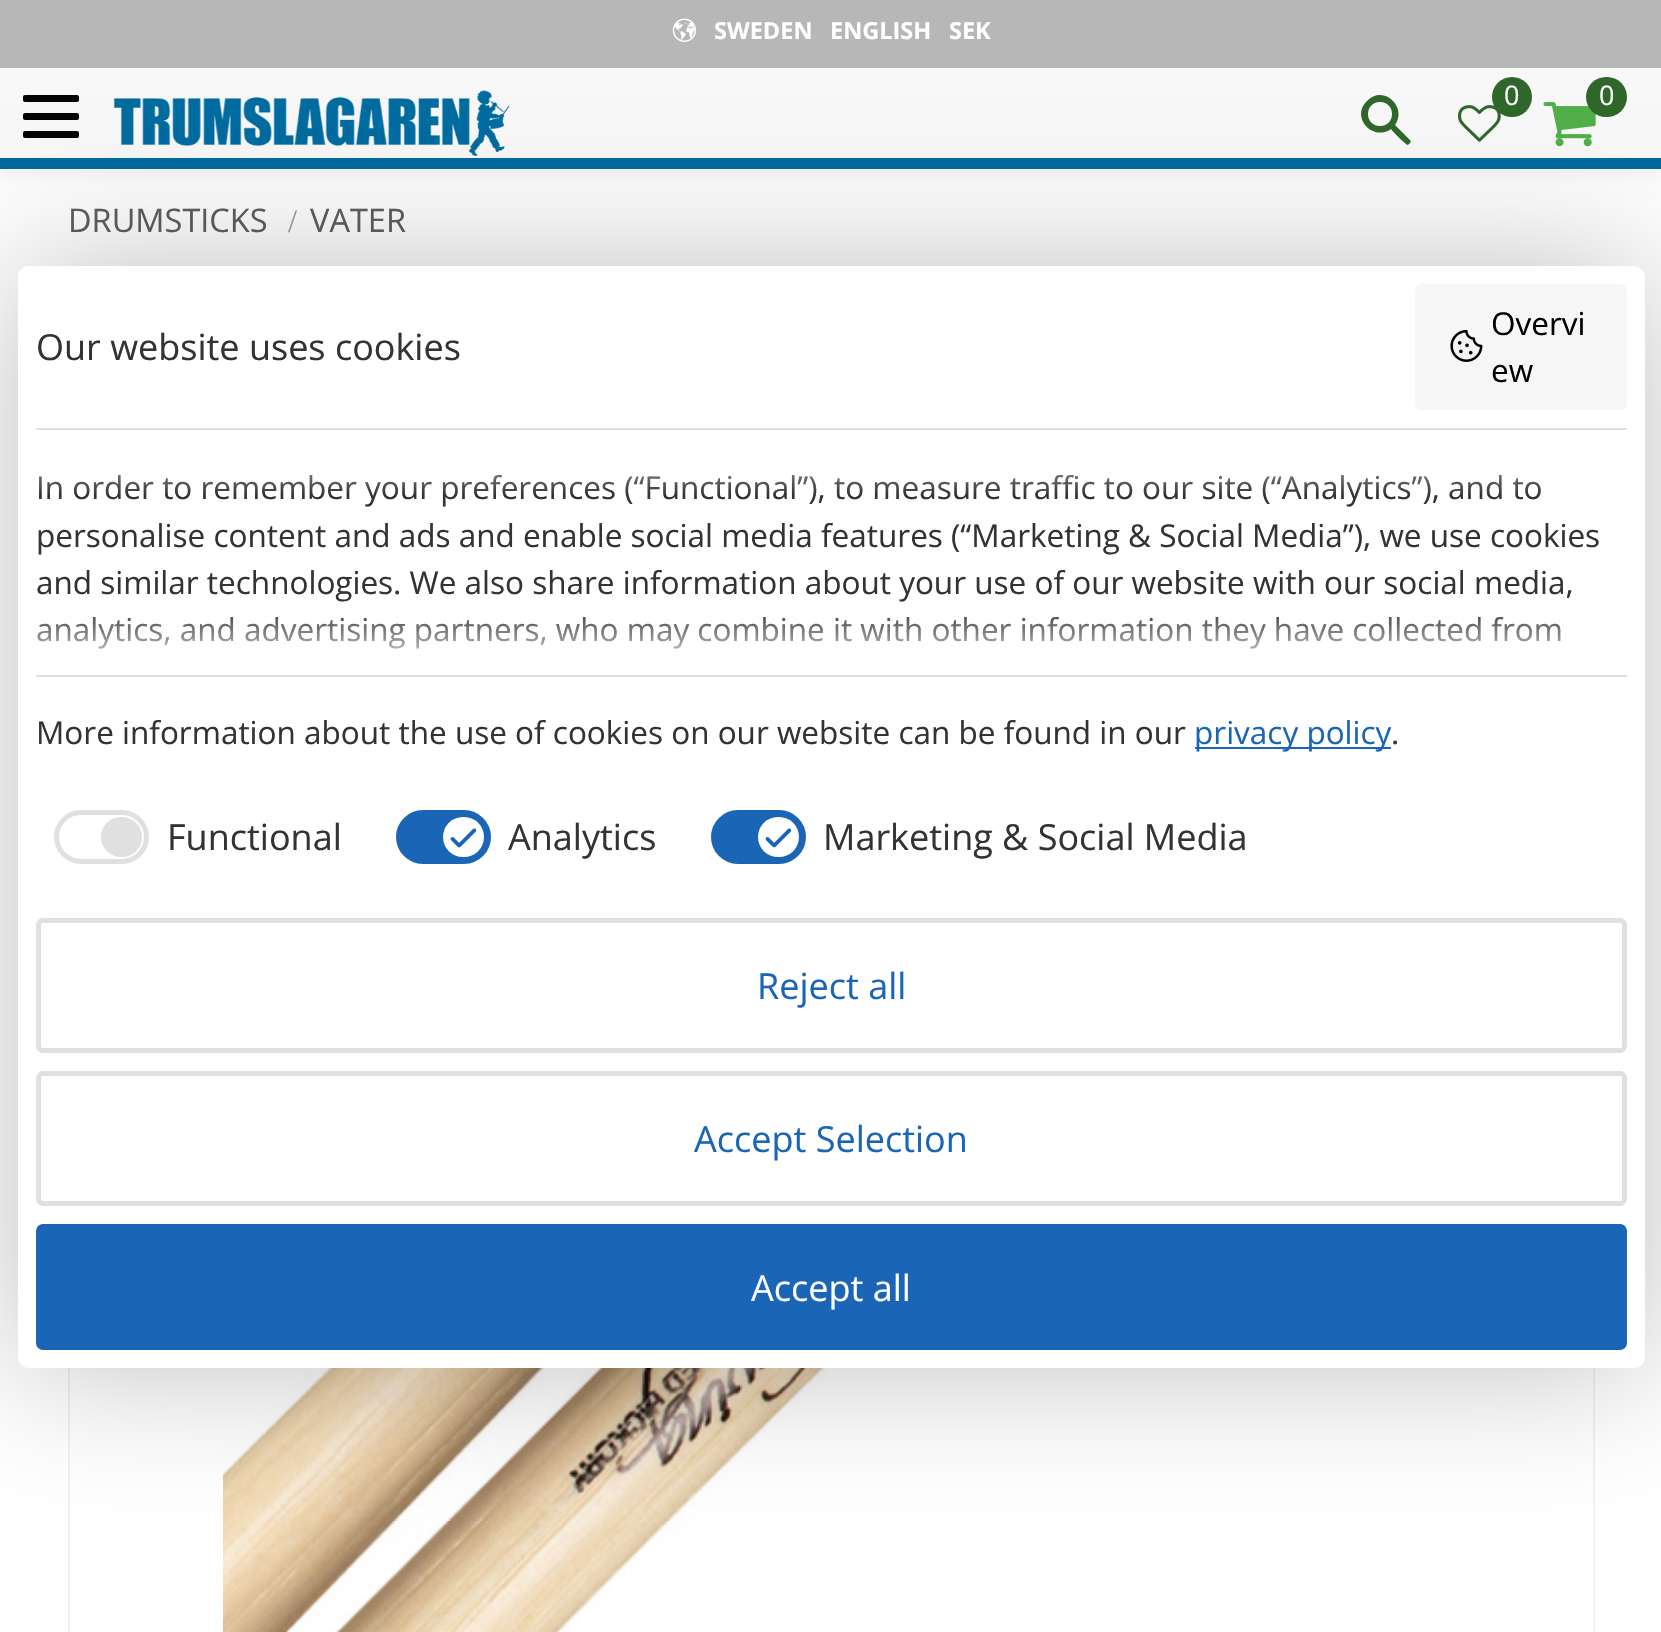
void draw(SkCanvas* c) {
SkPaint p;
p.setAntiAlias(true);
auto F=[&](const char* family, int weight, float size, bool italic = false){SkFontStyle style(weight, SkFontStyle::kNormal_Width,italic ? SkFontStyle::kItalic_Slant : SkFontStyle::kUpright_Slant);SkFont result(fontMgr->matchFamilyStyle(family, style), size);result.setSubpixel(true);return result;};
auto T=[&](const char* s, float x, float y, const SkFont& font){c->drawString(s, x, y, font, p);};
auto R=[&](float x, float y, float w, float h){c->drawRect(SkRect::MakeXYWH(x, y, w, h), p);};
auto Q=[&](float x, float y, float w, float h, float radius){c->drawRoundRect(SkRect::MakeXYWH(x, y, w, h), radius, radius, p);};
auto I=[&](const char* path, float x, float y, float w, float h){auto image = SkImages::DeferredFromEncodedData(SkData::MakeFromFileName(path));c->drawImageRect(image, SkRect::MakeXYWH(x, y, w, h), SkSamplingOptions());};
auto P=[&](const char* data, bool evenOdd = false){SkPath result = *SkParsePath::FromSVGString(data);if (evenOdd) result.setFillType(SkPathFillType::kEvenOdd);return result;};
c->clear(0xffffffff);
p.setColor(0x12000000);
p.setMaskFilter(SkMaskFilter::MakeBlur(kNormal_SkBlurStyle, 9));
c->drawRect(SkRect::MakeXYWH(0,5,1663,168),p);
p.setMaskFilter(nullptr);
p.setColor(0xffb7b7b7);
R(0,0,1661,68);
I("1.png",672,18,25,24);
auto f1 = F("Open Sans",700,23.5);
p.setColor(0xffffffff);
T("SWEDEN",714,39,f1);
T("ENGLISH",830,39,f1);
T("SEK",949,39,f1);
p.setColor(0xfff8f8f9);
R(0,68,1661,90);
I("2.png",113,90,397,66);
p.setColor(0xff2f672b);
c->drawPath(P("M1410 140c2 2-1 4-2 5c-2 0-16-14-17-16c-18 13-41-12-24-28c16-17 41 6 28 24zm-30-38c-16 0-16 24 0 24c16 0 16-24 0-24z"),p);
I("3.png",1458,105,43,37);
c->drawCircle(1512,97,20,p);
auto f2 = F("Open Sans",400,27);
p.setColor(0xffffffff);
T("0",1504,105,f2);
I("4.png",1543,102,53,45);
p.setColor(0xff2f672b);
Q(1586,77,41,40,20);
p.setColor(0xffffffff);
T("0",1599,105,f2);
p.setColor(0xff006ba0);
R(0,158,1661,11);
p.setColor(0xff040404);
Q(23,113,56,7,2);
Q(23,95,56,7,2);
Q(23,131,56,7,2);
auto f3 = F("Open Sans",400,32.5);
p.setColor(0xff5f5f5f);
T("DRUMSTICKS",68,232,f3);
auto f4 = F("Liberation Serif",400,32.5);
p.setColor(0xff9f9f9f);
T("/",288,232,f4);
p.setColor(0xff5f5f5f);
T("VATER",310,232,f3);
p.setStroke(true);
p.setStrokeWidth(2);
p.setColor(0xfff2f2f2);
c->drawRect(SkRect::MakeXYWH(69,489,1525,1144),p);
I("5.png",223,1368,1199,264);
p.setStroke(false);
p.setColor(0x40000000);
p.setMaskFilter(SkMaskFilter::MakeBlur(kNormal_SkBlurStyle, 72));
c->drawRoundRect(SkRect::MakeXYWH(18,266,1627,1102),11,11,p);
p.setMaskFilter(nullptr);
p.setColor(0xffffffff);
Q(18,266,1627,1102,11);
auto f5 = F("Open Sans",400,36);
p.setColor(0xff333333);
T("Our website uses cookies",36,360,f5);
p.setColor(0xfff6f6f6);
Q(1415,284,212,126,7);
auto f6 = F("Open Sans",400,31.5);
p.setColor(0xff000000);
T("Overvi",1491,335,f6);
I("6.png",1450,329,33,33);
T("ew",1491,382,f6);
p.setColor(0xffe0e0e0);
R(36,428,1591,2);
R(36,675,1591,2);
p.setColor(0xff333333);
T("In order to remember your preferences (“Functional”), to measure traffic to our site (“Analytics”), and to",36,499,f6);
T("personalise content and ads and enable social media features (“Marketing & Social Media”), we use cookies",36,547,f6);
T("and similar technologies. We also share information about your use of our website with our social media,",36,594,f6);
T("analytics, and advertising partners, who may combine it with other information they have collected from",36,641,f6);
{
const SkColor colors[] = {0x00ffffff,0xffffffff};
const float stops[] = {0,1};
const SkPoint ends[] = {{831,495}, {831,428}};
p.setShader(SkGradientShader::MakeLinear(ends, colors, stops, 2, SkTileMode::kClamp));
p.setAlpha(255);
}
R(39,474,1502,20);
{
const SkColor colors[] = {0x00ffffff,0xffffffff};
const float stops[] = {0,1};
const SkPoint ends[] = {{831,607}, {831,675}};
p.setShader(SkGradientShader::MakeLinear(ends, colors, stops, 2, SkTileMode::kClamp));
p.setAlpha(255);
}
R(37,617,1524,32);
p.setShader(nullptr);
p.setColor(0xff333333);
T("More information about the use of cookies on our website can be found in our",36,744,f6);
p.setColor(0xff1a65b5);
R(1195,747,196,2);
T("privacy policy",1194,744,f6);
p.setColor(0xff333333);
T(".",1391,744,f6);
p.setStroke(true);
p.setStrokeWidth(5);
p.setColor(0xffe0e0e0);
c->drawRoundRect(SkRect::MakeXYWH(56.5,812.5,90,49),24.5,24.5,p);
p.setStroke(false);
Q(101,817,41,40,20);
p.setColor(0xff333333);
T("Functional",167,850,f5);
p.setColor(0xff1a65b5);
c->drawRoundRect(SkRect::MakeXYWH(398.5,812.5,90,49),24.5,24.5,p);
p.setStroke(true);
c->drawRoundRect(SkRect::MakeXYWH(398.5,812.5,90,49),24.5,24.5,p);
p.setStroke(false);
p.setColor(0xffffffff);
Q(443,817,41,40,20);
I("7.png",450,828,27,20);
p.setColor(0xff333333);
T("Analytics",508,850,f5);
p.setColor(0xff1a65b5);
c->drawRoundRect(SkRect::MakeXYWH(713.5,812.5,90,49),24.5,24.5,p);
p.setStroke(true);
c->drawRoundRect(SkRect::MakeXYWH(713.5,812.5,90,49),24.5,24.5,p);
p.setStroke(false);
p.setColor(0xffffffff);
Q(758,817,41,40,20);
I("7.png",765,828,27,20);
p.setColor(0xff333333);
T("Marketing & Social Media",823,850,f5);
p.setStroke(true);
p.setColor(0xffe0e0e0);
c->drawRoundRect(SkRect::MakeXYWH(38.5,920.5,1586,130),4.5,4.5,p);
p.setStroke(false);
p.setColor(0xff1a65b5);
T("Reject all",757,999,f5);
p.setStroke(true);
p.setColor(0xffe0e0e0);
c->drawRoundRect(SkRect::MakeXYWH(38.5,1073.5,1586,130),4.5,4.5,p);
p.setStroke(false);
p.setColor(0xff1a65b5);
T("Accept Selection",694,1152,f5);
Q(36,1224,1591,126,7);
p.setColor(0xffffffff);
T("Accept all",751,1301,f5);
}
